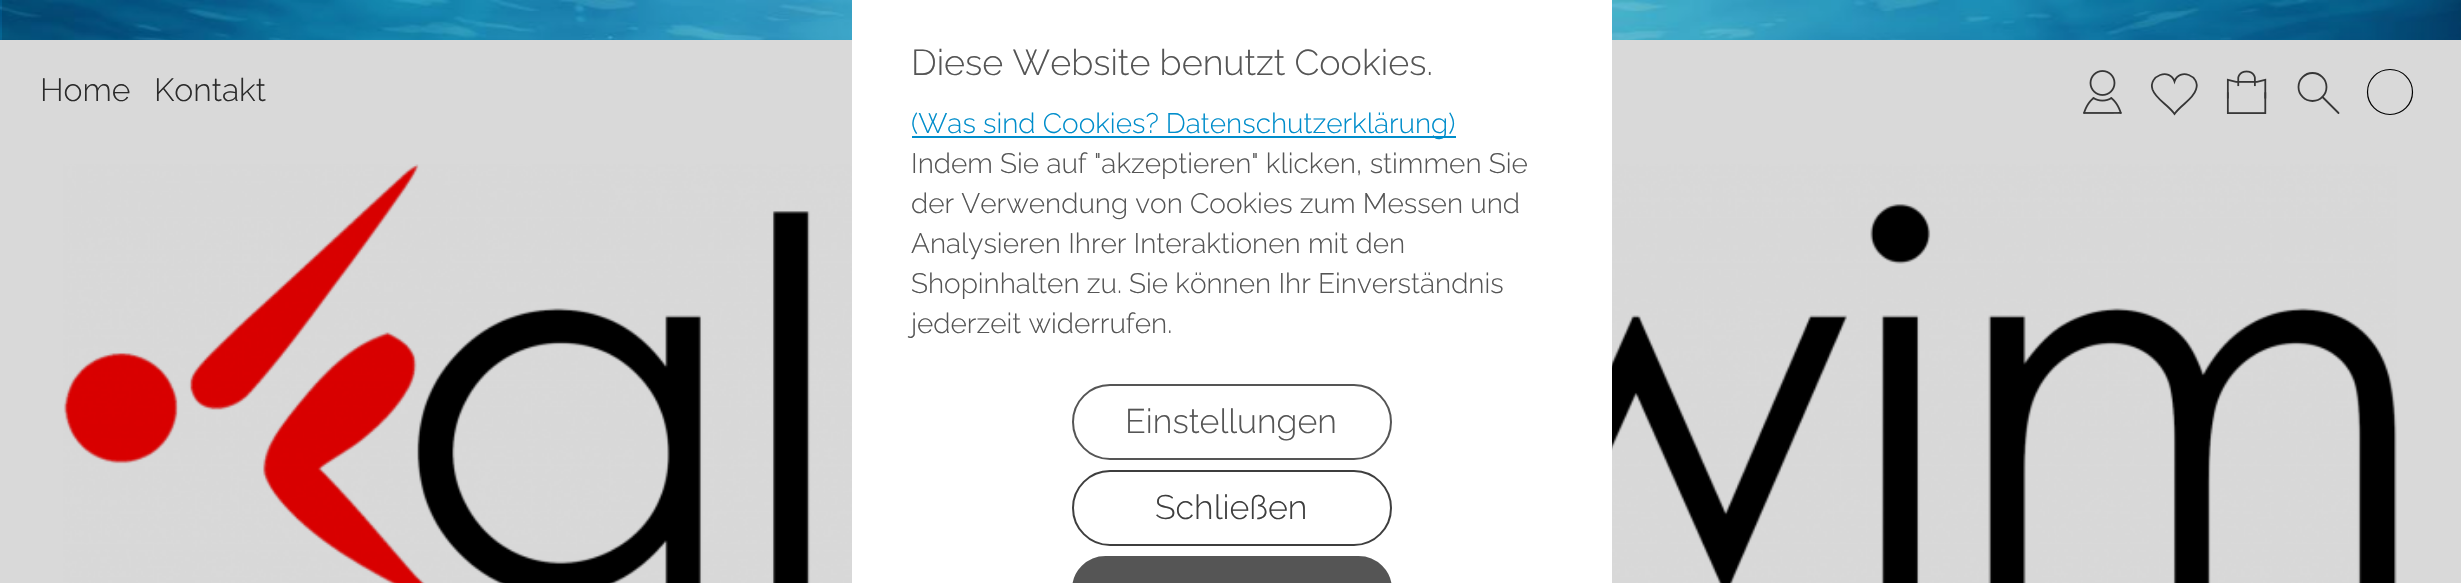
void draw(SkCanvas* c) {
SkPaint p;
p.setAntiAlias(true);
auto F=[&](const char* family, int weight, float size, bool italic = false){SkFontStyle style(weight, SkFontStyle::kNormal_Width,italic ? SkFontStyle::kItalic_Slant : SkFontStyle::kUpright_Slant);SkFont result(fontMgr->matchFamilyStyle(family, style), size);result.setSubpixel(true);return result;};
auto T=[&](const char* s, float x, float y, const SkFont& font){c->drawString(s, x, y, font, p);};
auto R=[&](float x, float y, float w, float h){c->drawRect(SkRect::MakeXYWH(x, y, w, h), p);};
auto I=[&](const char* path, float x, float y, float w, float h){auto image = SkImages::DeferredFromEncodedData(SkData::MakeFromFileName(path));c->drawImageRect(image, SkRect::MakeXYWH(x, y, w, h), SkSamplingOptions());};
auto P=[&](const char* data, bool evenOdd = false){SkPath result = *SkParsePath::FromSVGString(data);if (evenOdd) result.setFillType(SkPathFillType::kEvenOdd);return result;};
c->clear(0xffffffff);
I("1.png",0,0,2461,40);
p.setColor(0xffd9d9d9);
R(0,40,2461,543);
I("2.png",63,164,2334,419);
auto f1 = F("Raleway",300,32);
p.setColor(0xff2b2b2b);
T("Home",40,101,f1);
T("Kontakt",154,101,f1);
I("3.png",2083,70,39,44);
p.setStroke(true);
p.setStrokeWidth(1.8);
p.setColor(0xff363636);
c->drawPath(P("M2174.5 114c-6-9-18.5-14.5-22-24.5c-4.5-14 17.5-22 22-8c4.5-14 26.5-6 21.5 8c-3 10-15.5 15.5-21.5 24.5z"),p);
I("4.png",2226,70,41,44);
c->drawCircle(2312.5,87,14,p);
p.setStrokeCap(SkPaint::kRound_Cap);
c->drawPath(P("M2322.5 97l16 16"),p);
p.setStrokeWidth(1.2);
p.setStrokeCap(SkPaint::kButt_Cap);
p.setColor(0xff000000);
c->drawCircle(2390,92,22.5,p);
p.setStroke(false);
p.setColor(0xffffffff);
R(852,0,760,583);
auto f2 = F("Raleway",300,36);
p.setColor(0xff555555);
T("Diese Website benutzt Cookies.",911,75,f2);
p.setColor(0xff008dcb);
R(912,136,544,2);
auto f3 = F("Raleway",300,28);
T("(Was sind Cookies? Datenschutzerklärung)",911,133,f3);
p.setColor(0xff555555);
T("Indem Sie auf \"akzeptieren\" klicken, stimmen Sie",911,173,f3);
T("der Verwendung von Cookies zum Messen und",911,213,f3);
T("Analysieren Ihrer Interaktionen mit den",911,253,f3);
T("Shopinhalten zu. Sie können Ihr Einverständnis",911,293,f3);
T("jederzeit widerrufen.",911,333,f3);
p.setStroke(true);
p.setStrokeWidth(2);
c->drawRoundRect(SkRect::MakeXYWH(1073,385,318,74),37,37,p);
auto f4 = F("Raleway",300,34);
p.setStroke(false);
T("Einstellungen",1125,433,f4);
p.setStroke(true);
p.setColor(0xff3e3e3e);
c->drawRoundRect(SkRect::MakeXYWH(1073,471,318,74),37,37,p);
p.setStroke(false);
T("Schließen",1155,519,f4);
p.setColor(0xff555555);
c->drawRoundRect(SkRect::MakeXYWH(1073,557,318,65),37,37,p);
p.setStroke(true);
c->drawRoundRect(SkRect::MakeXYWH(1073,557,318,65),37,37,p);
}
